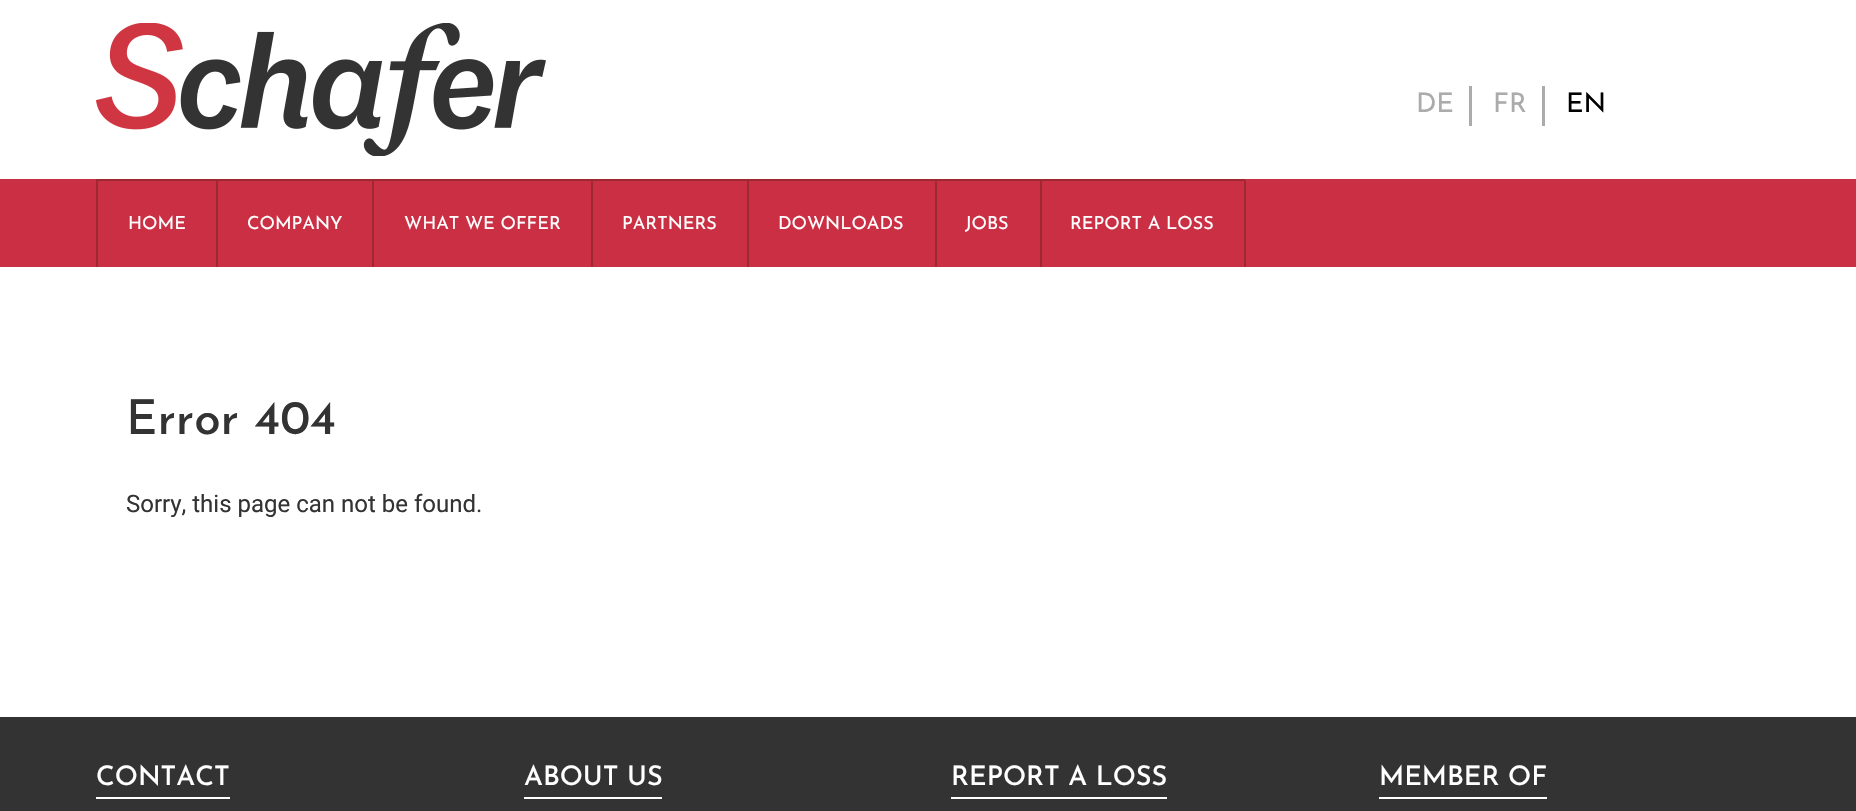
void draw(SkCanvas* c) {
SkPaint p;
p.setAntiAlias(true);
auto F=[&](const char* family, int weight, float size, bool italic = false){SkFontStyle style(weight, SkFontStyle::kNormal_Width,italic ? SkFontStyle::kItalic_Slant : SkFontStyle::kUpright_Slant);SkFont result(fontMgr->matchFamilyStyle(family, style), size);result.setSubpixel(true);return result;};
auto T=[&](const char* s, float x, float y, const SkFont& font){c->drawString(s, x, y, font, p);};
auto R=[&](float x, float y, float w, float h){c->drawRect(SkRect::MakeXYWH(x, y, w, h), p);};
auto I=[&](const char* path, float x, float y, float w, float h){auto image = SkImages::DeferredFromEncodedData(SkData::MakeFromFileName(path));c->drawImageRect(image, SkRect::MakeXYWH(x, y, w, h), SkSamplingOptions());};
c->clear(0xffffffff);
I("1.png",96,23,450,133);
p.setColor(0xffababab);
R(1469,86,3,40);
auto f1 = F("Josefin Sans",400,27);
T("DE",1416,112,f1);
R(1542,86,3,40);
T("FR",1493,112,f1);
p.setColor(0xff000000);
T("EN",1566,112,f1);
p.setColor(0xffca2f44);
R(0,179,1856,88);
p.setColor(0xff9d2831);
R(96,179,1149,2);
R(96,180,2,87);
auto f2 = F("Josefin Sans",400,18);
p.setColor(0xffffffff);
T("HOME",128,229,f2);
p.setColor(0xff9d2831);
R(216,180,2,87);
p.setColor(0xffffffff);
T("COMPANY",247,229,f2);
p.setColor(0xff9d2831);
R(372,180,2,87);
p.setColor(0xffffffff);
T("WHAT WE OFFER",404,229,f2);
p.setColor(0xff9d2831);
R(591,180,2,87);
p.setColor(0xffffffff);
T("PARTNERS",622,229,f2);
p.setColor(0xff9d2831);
R(747,180,2,87);
p.setColor(0xffffffff);
T("DOWNLOADS",778,229,f2);
p.setColor(0xff9d2831);
R(935,180,2,87);
p.setColor(0xffffffff);
T("JOBS",965,229,f2);
p.setColor(0xff9d2831);
R(1244,180,2,87);
R(1040,180,2,87);
p.setColor(0xffffffff);
T("REPORT A LOSS",1070,229,f2);
auto f3 = F("Josefin Sans",500,48);
p.setColor(0xff333333);
T("Error 404",126,434,f3);
auto f4 = F("Roboto",400,24);
T("Sorry, this page can not be found.",126,512,f4);
R(0,717,1856,94);
p.setColor(0xffffffff);
R(96,797,134,2);
auto f5 = F("Josefin Sans",500,27);
T("CONTACT",96,785,f5);
R(524,797,138,2);
T("ABOUT US",524,785,f5);
R(951,797,216,2);
T("REPORT A LOSS",951,785,f5);
R(1379,797,168,2);
T("MEMBER OF",1379,785,f5);
}
